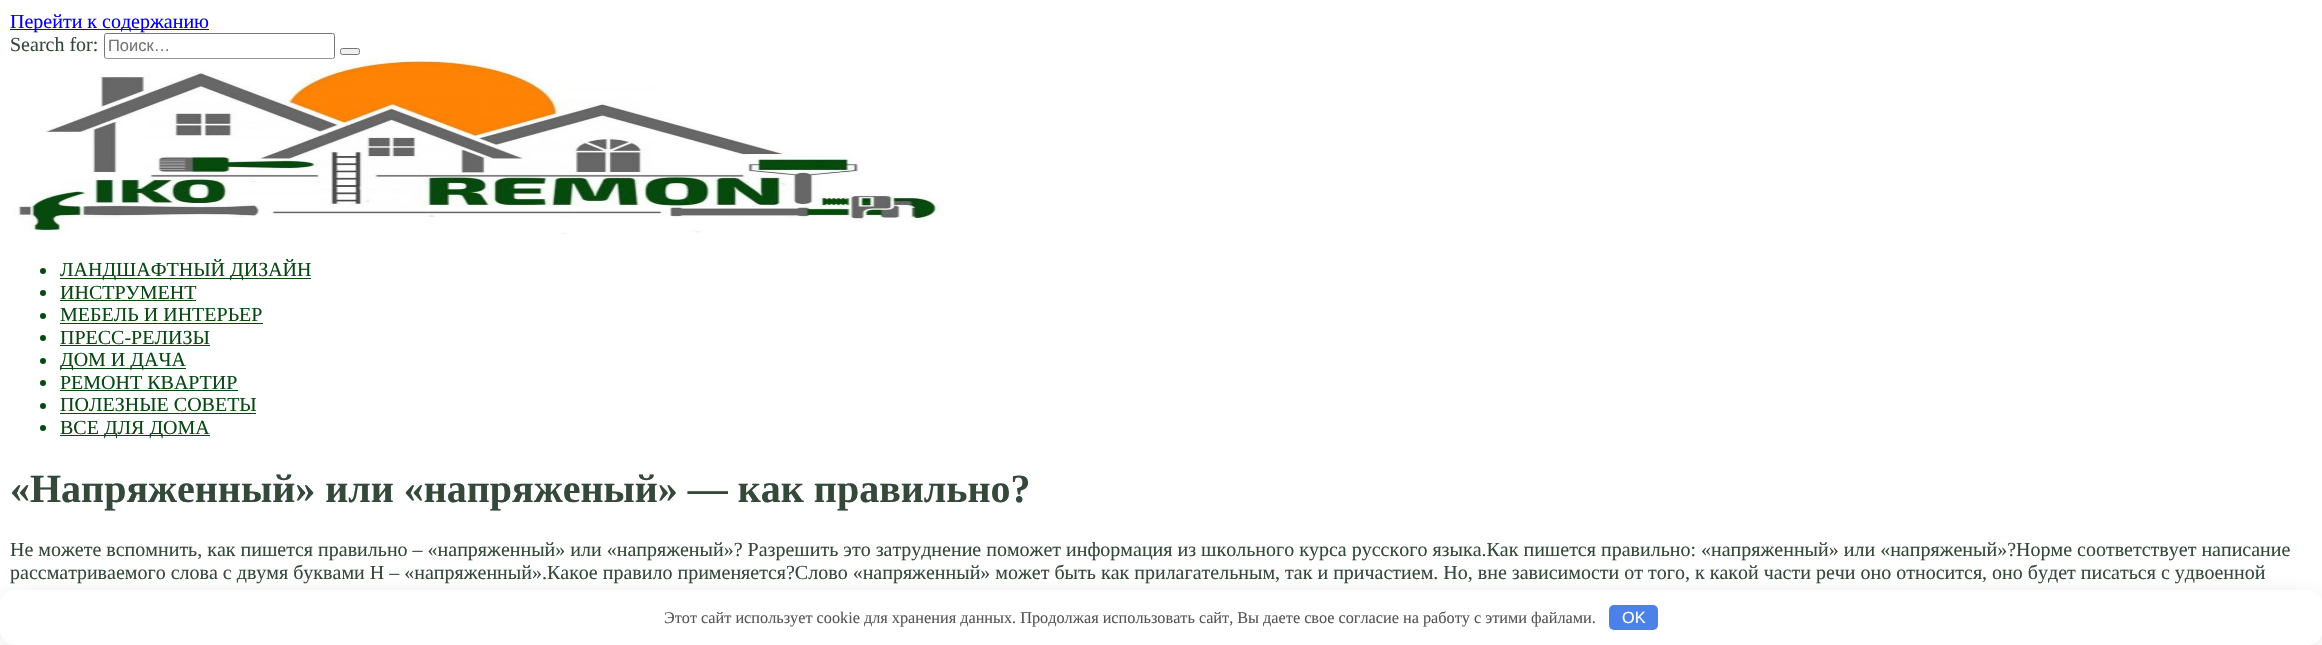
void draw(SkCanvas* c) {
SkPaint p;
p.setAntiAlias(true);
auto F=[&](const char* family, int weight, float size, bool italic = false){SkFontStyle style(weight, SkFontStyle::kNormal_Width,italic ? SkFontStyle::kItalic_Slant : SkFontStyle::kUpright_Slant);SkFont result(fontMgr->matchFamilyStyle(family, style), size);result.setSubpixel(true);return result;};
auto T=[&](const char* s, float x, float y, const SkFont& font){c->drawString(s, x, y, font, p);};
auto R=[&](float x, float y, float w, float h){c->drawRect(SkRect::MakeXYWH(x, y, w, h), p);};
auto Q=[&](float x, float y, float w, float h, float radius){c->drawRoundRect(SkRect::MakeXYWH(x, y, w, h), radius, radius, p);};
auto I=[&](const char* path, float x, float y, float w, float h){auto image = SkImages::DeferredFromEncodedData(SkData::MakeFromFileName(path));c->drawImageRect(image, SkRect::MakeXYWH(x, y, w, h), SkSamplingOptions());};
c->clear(0xffffffff);
p.setColor(0xff0000ee);
R(10,29,199,1);
auto f1 = F("Liberation Serif",400,20);
T("Перейти к содержанию",10,28,f1);
p.setColor(0xff344939);
T("Search for:",10,51,f1);
p.setStroke(true);
p.setStrokeWidth(1);
p.setColor(0xff767676);
c->drawRoundRect(SkRect::MakeXYWH(104.5,33.5,230,25),2,2,p);
auto f2 = F("Liberation Sans",400,16.5);
p.setStroke(false);
p.setColor(0xff757575);
T("Поиск…",108,51,f2);
p.setColor(0xffefefef);
c->drawRoundRect(SkRect::MakeXYWH(340.5,48.5,19,6),2,2,p);
p.setStroke(true);
p.setColor(0xff767676);
c->drawRoundRect(SkRect::MakeXYWH(340.5,48.5,19,6),2,2,p);
I("1.png",13,58,932,176);
p.setStroke(false);
p.setColor(0xff084913);
c->drawCircle(43,271,3,p);
R(60,278,251,1);
T("ЛАНДШАФТНЫЙ ДИЗАЙН",60,276,f1);
c->drawCircle(43,293,3,p);
T("ИНСТРУМЕНТ",60,299,f1);
R(60,300,136,1);
c->drawCircle(43,316,3,p);
T("МЕБЕЛЬ И ИНТЕРЬЕР",60,321,f1);
R(60,323,203,1);
c->drawCircle(43,338,3,p);
T("ПРЕСС-РЕЛИЗЫ",60,344,f1);
R(60,345,150,1);
c->drawCircle(43,361,3,p);
R(60,368,126,1);
T("ДОМ И ДАЧА",60,366,f1);
c->drawCircle(43,383,3,p);
T("РЕМОНТ КВАРТИР",60,389,f1);
R(60,390,178,1);
c->drawCircle(43,406,3,p);
T("ПОЛЕЗНЫЕ СОВЕТЫ",60,411,f1);
R(60,413,196,1);
c->drawCircle(43,428,3,p);
R(60,435,150,1);
T("ВСЕ ДЛЯ ДОМА",60,434,f1);
auto f3 = F("Liberation Serif",700,40);
p.setColor(0xff344939);
T("«Напряженный» или «напряженый» — как правильно?",10,502,f3);
T("Не можете вспомнить, как пишется правильно – «напряженный» или «напряженый»? Разрешить это затруднение поможет информация из школьного курса русского языка.Как пишется правильно: «напряженный» или «напряженый»?Норме соответствует написание",10,556,f1);
T("рассматриваемого слова с двумя буквами Н – «напряженный».Какое правило применяется?Слово «напряженный» может быть как прилагательным, так и причастием. Но, вне зависимости от того, к какой части речи оно относится, оно будет писаться с удвоенной",10,579,f1);
p.setColor(0x33292c38);
p.setMaskFilter(SkMaskFilter::MakeBlur(kNormal_SkBlurStyle, 12.5));
c->drawRoundRect(SkRect::MakeXYWH(6,600,2310,43),9,9,p);
p.setMaskFilter(nullptr);
p.setColor(0xffffffff);
Q(0,590,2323,55,15);
auto f4 = F("Liberation Serif",400,16.25);
p.setColor(0xff555555);
T("Этот сайт использует cookie для хранения данных. Продолжая использовать сайт, Вы даете свое согласие на работу с этими файлами.",664,623,f4);
p.setColor(0xff4b81e8);
Q(1609,605,49,25,5);
auto f5 = F("Liberation Sans",400,16.25);
p.setColor(0xffffffff);
T("OK",1622,623,f5);
}
